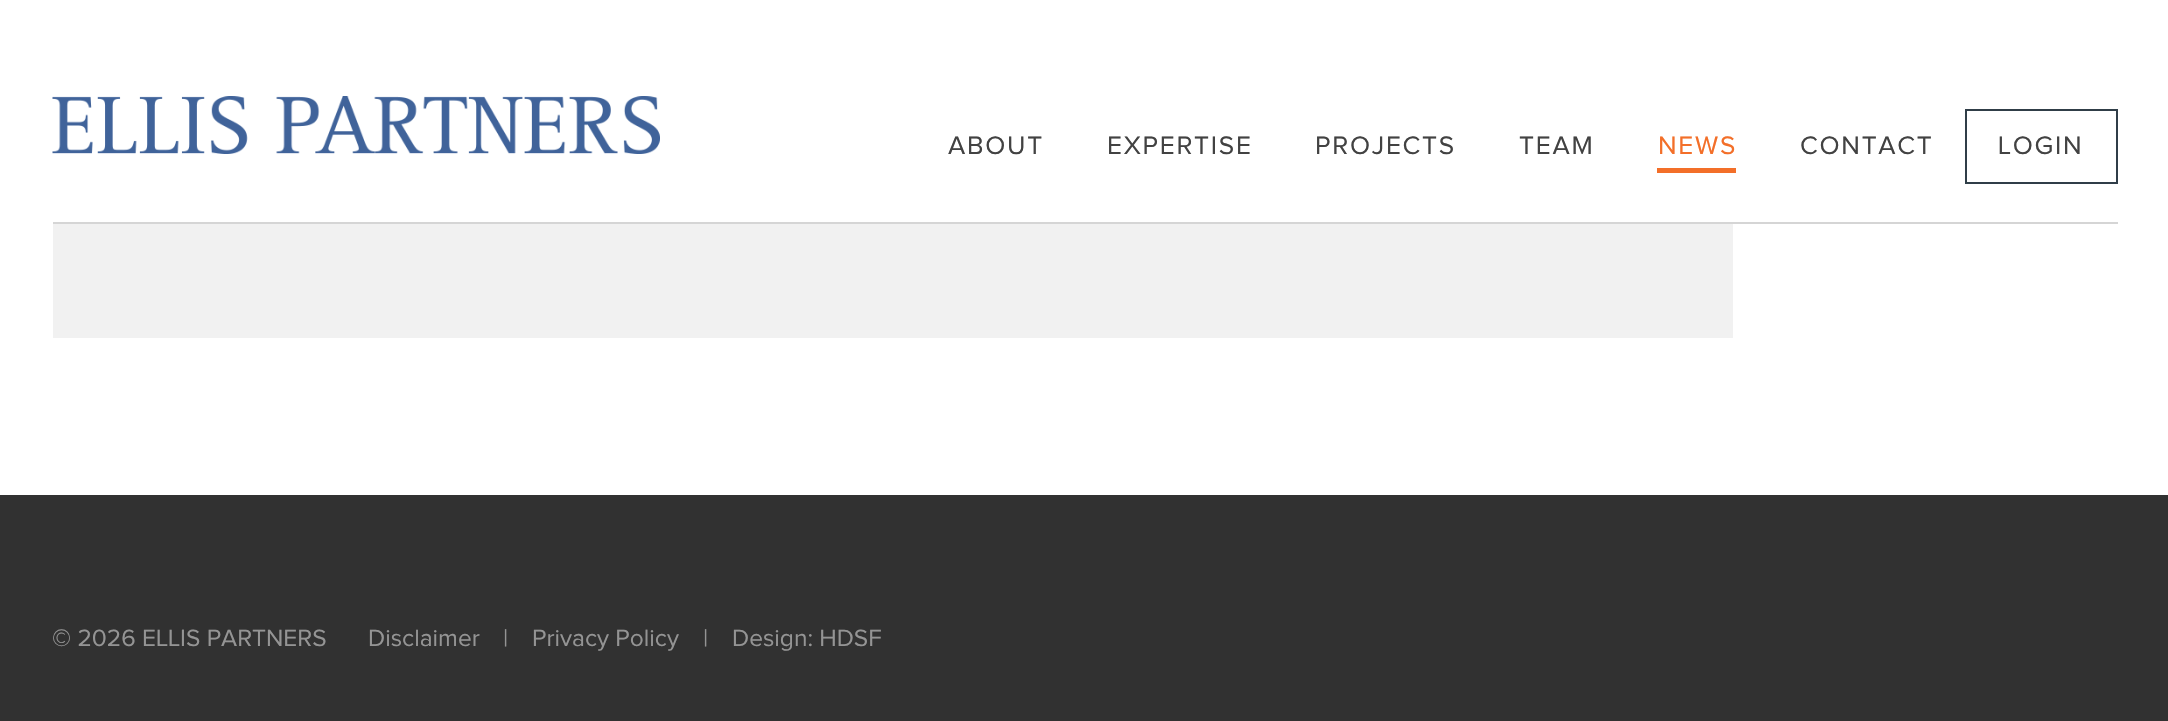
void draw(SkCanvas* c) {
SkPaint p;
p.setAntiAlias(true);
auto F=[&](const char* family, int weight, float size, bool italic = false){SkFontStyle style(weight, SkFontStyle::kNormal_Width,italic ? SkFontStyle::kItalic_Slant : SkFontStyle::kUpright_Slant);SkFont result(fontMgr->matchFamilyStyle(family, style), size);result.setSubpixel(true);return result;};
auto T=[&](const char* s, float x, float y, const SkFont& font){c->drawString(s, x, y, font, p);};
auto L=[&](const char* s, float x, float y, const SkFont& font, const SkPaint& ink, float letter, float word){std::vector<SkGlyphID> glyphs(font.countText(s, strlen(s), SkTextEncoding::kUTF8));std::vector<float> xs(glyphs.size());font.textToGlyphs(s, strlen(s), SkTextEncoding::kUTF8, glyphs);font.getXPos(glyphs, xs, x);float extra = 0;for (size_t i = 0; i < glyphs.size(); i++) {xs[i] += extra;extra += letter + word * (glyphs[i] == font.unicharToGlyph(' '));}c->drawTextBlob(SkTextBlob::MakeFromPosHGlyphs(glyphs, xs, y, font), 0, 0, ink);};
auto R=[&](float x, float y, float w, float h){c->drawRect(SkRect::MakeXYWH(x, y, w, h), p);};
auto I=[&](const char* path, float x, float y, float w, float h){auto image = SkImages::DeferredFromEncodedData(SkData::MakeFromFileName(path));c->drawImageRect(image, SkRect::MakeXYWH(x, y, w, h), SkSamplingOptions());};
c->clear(0xffffffff);
p.setColor(0xffd5d5d5);
R(53,222,2065,2);
I("1.png",52,96,608,58);
auto f1 = F("Proxima Nova",400,26.25);
p.setColor(0xff424242);
L("ABOUT",948,154,f1,p,1.75,0);
L("EXPERTISE",1107,154,f1,p,1.75,0);
L("PROJECTS",1315,154,f1,p,1.75,0);
L("TEAM",1519,154,f1,p,1.75,0);
p.setColor(0xfff36f29);
L("NEWS",1658,154,f1,p,1.75,0);
R(1657,168,79,5);
p.setColor(0xff424242);
L("CONTACT",1800,154,f1,p,1.75,0);
p.setStroke(true);
p.setStrokeWidth(2);
p.setColor(0xff303e48);
c->drawRect(SkRect::MakeXYWH(1966,110,151,73),p);
p.setStroke(false);
p.setColor(0xff424242);
L("LOGIN",1998,154,f1,p,1.75,0);
p.setColor(0xfff1f1f1);
R(53,224,1680,114);
p.setColor(0xff313131);
R(0,495,2168,226);
auto f2 = F("Proxima Nova",400,24.5);
p.setColor(0xff949494);
T("© 2026 ELLIS PARTNERS",52,646,f2);
T("Disclaimer",368,646,f2);
T("|",503,646,f2);
T("Privacy Policy",532,646,f2);
T("|",703,646,f2);
T("Design: HDSF",732,646,f2);
}
